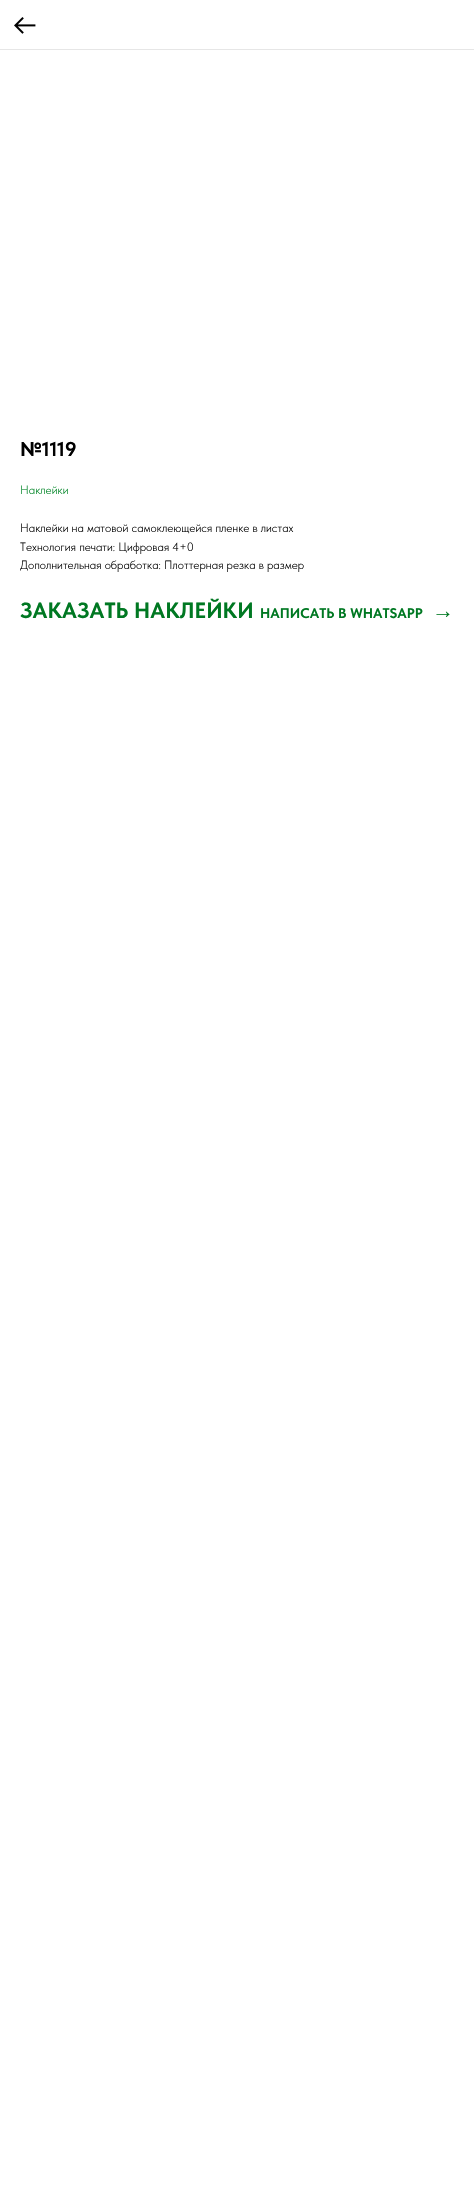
void draw(SkCanvas* c) {
SkPaint p;
p.setAntiAlias(true);
auto F=[&](const char* family, int weight, float size, bool italic = false){SkFontStyle style(weight, SkFontStyle::kNormal_Width,italic ? SkFontStyle::kItalic_Slant : SkFontStyle::kUpright_Slant);SkFont result(fontMgr->matchFamilyStyle(family, style), size);result.setSubpixel(true);return result;};
auto T=[&](const char* s, float x, float y, const SkFont& font){c->drawString(s, x, y, font, p);};
auto R=[&](float x, float y, float w, float h){c->drawRect(SkRect::MakeXYWH(x, y, w, h), p);};
auto I=[&](const char* path, float x, float y, float w, float h){auto image = SkImages::DeferredFromEncodedData(SkData::MakeFromFileName(path));c->drawImageRect(image, SkRect::MakeXYWH(x, y, w, h), SkSamplingOptions());};
c->clear(0xffffffff);
p.setColor(0xffe6e6e6);
R(0,49,474,1);
I("1.png",14,17,22,17);
auto f1 = F("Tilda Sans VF",700,20);
p.setColor(0xff000000);
T("№1119",20,456,f1);
auto f2 = F("Tilda Sans VF",300,12);
p.setColor(0xff008526);
T("Наклейки",20,494,f2);
p.setColor(0xff000000);
T("Наклейки на матовой самоклеющейся пленке в листах",20,532,f2);
T("Технология печати: Цифровая 4+0",20,551,f2);
T("Дополнительная обработка: Плоттерная резка в размер",20,569,f2);
auto f3 = F("Tilda Sans VF",700,22);
p.setColor(0xff007822);
T("ЗАКАЗАТЬ НАКЛЕЙКИ",20,618,f3);
auto f4 = F("Tilda Sans VF",700,14);
T("НАПИСАТЬ В WHATSAPP",260,618,f4);
auto f5 = F("Liberation Sans",700,22);
T("→",432,618,f5);
}
